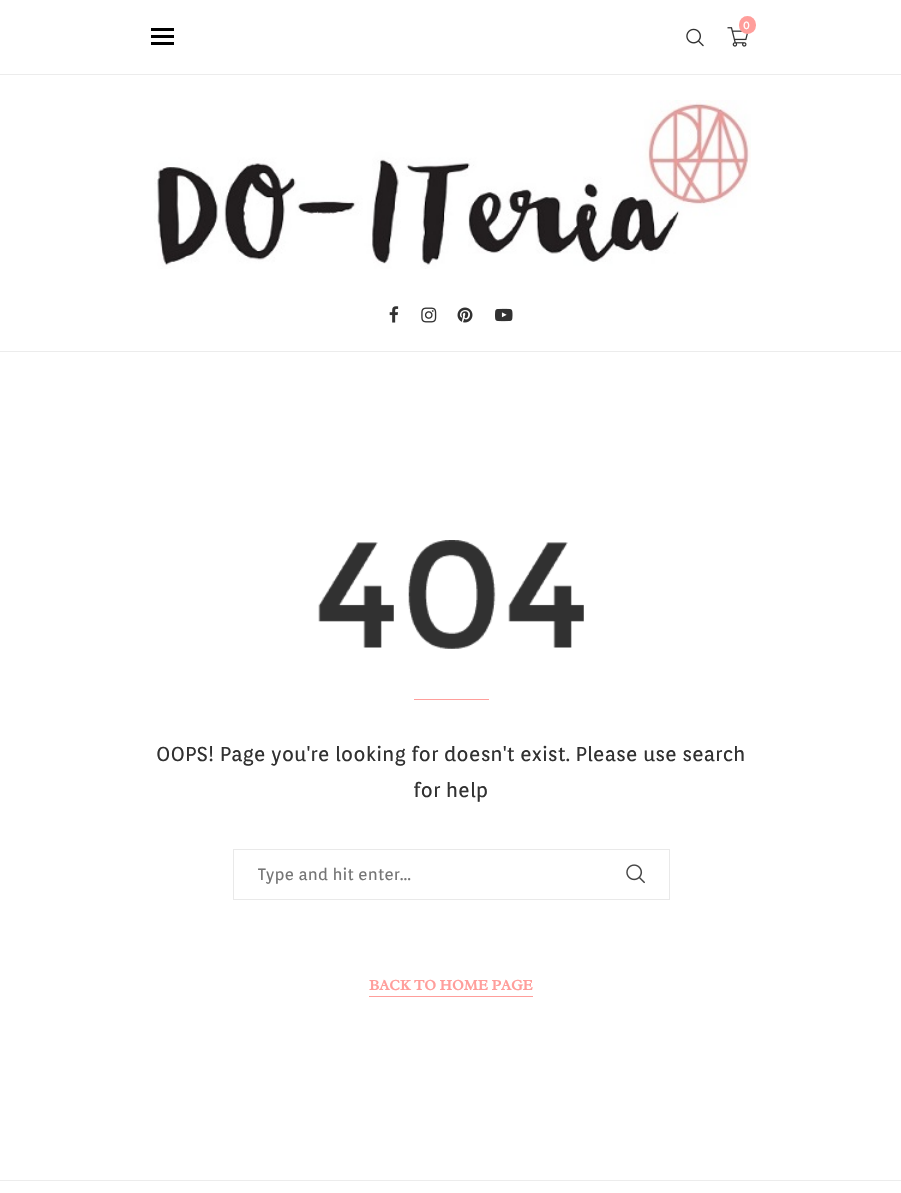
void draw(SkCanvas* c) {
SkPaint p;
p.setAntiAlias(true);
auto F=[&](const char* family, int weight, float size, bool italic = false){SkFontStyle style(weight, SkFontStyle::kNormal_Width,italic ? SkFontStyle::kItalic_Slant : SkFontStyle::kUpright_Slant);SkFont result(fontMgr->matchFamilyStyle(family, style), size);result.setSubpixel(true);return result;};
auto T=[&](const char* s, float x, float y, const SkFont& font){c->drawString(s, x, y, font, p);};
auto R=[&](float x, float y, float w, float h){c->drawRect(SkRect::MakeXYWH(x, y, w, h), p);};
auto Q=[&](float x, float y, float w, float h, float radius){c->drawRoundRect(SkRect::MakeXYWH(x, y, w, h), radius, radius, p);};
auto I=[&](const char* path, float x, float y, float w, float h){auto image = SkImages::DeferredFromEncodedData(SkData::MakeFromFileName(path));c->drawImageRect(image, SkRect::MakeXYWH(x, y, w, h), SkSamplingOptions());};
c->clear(0xffffffff);
p.setColor(0xffececec);
R(0,74,901,1);
I("1.png",727,27,22,20);
p.setColor(0xffff9e9b);
Q(739,16,17,18,8.5);
auto f1 = F("Orienta",400,11);
p.setColor(0xffffffff);
T("0",743,29,f1);
p.setColor(0xff000000);
R(151,28,23,3);
R(151,35,23,3);
R(151,42,23,3);
I("2.png",686,28,18,19);
p.setColor(0xffececec);
R(0,351,901,1);
I("3.png",154,100,597,169);
I("4.png",389,306,10,17);
I("5.png",421,307,16,16);
I("6.png",457,307,16,16);
I("7.png",495,308,18,14);
I("8.png",318,540,266,109);
p.setColor(0xffff9e9b);
R(414,699,75,1);
auto f2 = F("Orienta",400,20);
p.setColor(0xff313131);
T("OOPS! Page you're looking for doesn't exist. Please use search",156,761,f2);
T("for help",413,797,f2);
p.setStroke(true);
p.setStrokeWidth(1);
p.setColor(0xffe9e9e9);
c->drawRect(SkRect::MakeXYWH(233.5,849.5,436,50),p);
auto f3 = F("Orienta",400,16.25);
p.setStroke(false);
p.setColor(0xff757575);
T("Type and hit enter...",258,880,f3);
I("9.png",626,864,19,20);
auto f4 = F("Radley",700,15);
p.setColor(0xffff9e9b);
T("BACK TO HOME PAGE",369,990,f4);
R(369,996,164,1);
p.setColor(0xffececec);
R(0,1180,901,1);
}
